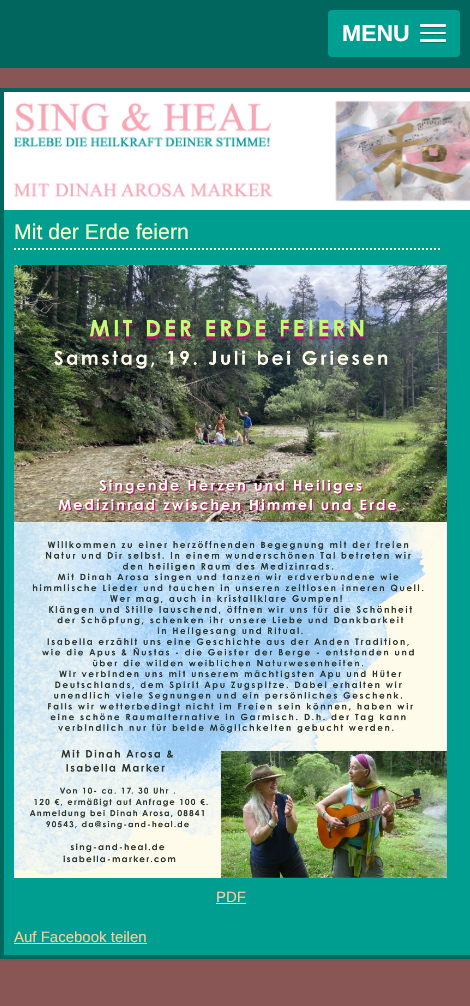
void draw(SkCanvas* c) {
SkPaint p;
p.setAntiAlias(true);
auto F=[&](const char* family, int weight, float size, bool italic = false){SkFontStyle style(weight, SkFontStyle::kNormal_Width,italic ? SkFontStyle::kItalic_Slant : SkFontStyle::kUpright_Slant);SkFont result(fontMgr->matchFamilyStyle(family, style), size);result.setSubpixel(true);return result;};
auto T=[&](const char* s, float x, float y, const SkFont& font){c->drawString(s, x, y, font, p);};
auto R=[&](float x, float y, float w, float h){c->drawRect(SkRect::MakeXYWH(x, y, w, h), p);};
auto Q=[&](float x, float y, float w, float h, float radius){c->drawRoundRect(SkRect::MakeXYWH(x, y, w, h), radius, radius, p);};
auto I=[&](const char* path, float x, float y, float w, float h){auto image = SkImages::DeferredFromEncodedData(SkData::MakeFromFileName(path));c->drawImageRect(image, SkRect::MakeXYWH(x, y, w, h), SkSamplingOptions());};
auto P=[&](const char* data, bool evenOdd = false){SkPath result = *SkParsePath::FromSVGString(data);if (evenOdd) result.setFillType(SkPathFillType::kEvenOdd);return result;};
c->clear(0xff895555);
p.setColor(0xff00665e);
R(0,0,470,68);
p.setColor(0xff009e90);
Q(328,10,132,47,4);
auto f1 = F("Liberation Sans",700,23);
p.setColor(0xffffffff);
T("MENU",342,41,f1);
p.setColor(0xff00776c);
c->drawPath(P("M420 26c0 3 2 2 5 2h16c3 0 5 1 5-2c0 .5-.5 1-1 1h-24c-.5 0-1-.5-1-1z"),p);
p.setColor(0xfff5f5f5);
Q(420,24,26,3,1);
p.setColor(0xff00776c);
c->drawPath(P("M420 33.5c0 .5 0 1.5 1 1.5h20c3 0 6 .5 5-1.5l-1 .5h-24z"),p);
p.setColor(0xfff5f5f5);
Q(420,32,26,2,1);
p.setColor(0xff00776c);
c->drawPath(P("M420 41c0 3 2 2 5 2h16c3 0 5 1 5-2c0 .5-.5 1-1 1h-24c-.5 0-1-.5-1-1z"),p);
p.setColor(0xfff5f5f5);
Q(420,39,26,3,1);
p.setColor(0xff5d5d5d);
p.setMaskFilter(SkMaskFilter::MakeBlur(kNormal_SkBlurStyle, 1));
c->drawRect(SkRect::MakeXYWH(1,89,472,871),p);
p.setMaskFilter(nullptr);
p.setColor(0xff009e90);
R(4,210,466,745);
p.setStroke(true);
p.setStrokeWidth(4);
p.setColor(0xff00665e);
c->drawRect(SkRect::MakeXYWH(2,90,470,867),p);
p.setStroke(false);
p.setColor(0xffffffff);
R(4,92,466,118);
I("1.png",13,100,457,102);
p.setStroke(true);
p.setStrokeWidth(2);
p.setColor(0xffffffcc);
p.setPathEffect(SkDashPathEffect::Make({{2,2}}, 0));
c->drawPath(P("M14 249h428"),p);
p.setPathEffect(nullptr);
auto f2 = F("Liberation Sans",400,21.25);
p.setStroke(false);
T("Mit der Erde feiern",14,239,f2);
I("2.png",14,265,433,613);
auto f3 = F("Liberation Sans",400,15);
p.setColor(0xffffcc99);
T("PDF",216,902,f3);
R(216,903,30,1);
T("Auf Facebook teilen",14,942,f3);
R(14,943,133,1);
}
